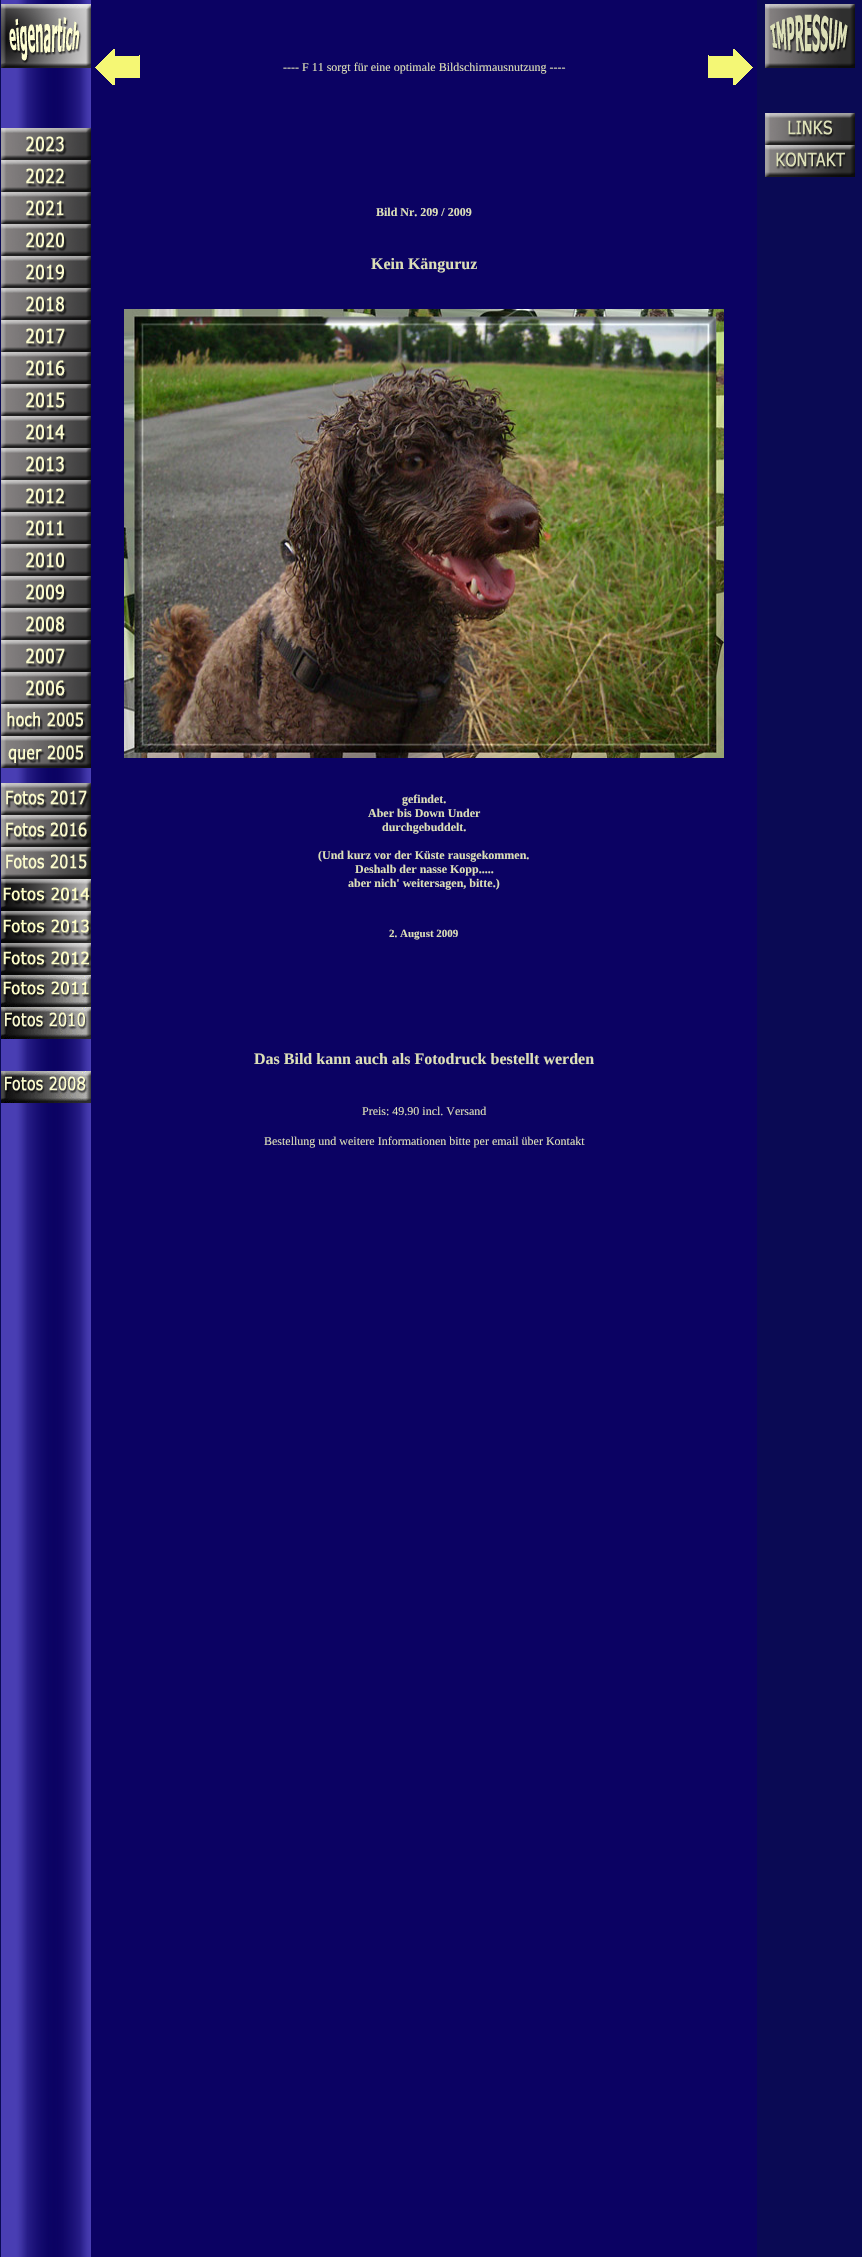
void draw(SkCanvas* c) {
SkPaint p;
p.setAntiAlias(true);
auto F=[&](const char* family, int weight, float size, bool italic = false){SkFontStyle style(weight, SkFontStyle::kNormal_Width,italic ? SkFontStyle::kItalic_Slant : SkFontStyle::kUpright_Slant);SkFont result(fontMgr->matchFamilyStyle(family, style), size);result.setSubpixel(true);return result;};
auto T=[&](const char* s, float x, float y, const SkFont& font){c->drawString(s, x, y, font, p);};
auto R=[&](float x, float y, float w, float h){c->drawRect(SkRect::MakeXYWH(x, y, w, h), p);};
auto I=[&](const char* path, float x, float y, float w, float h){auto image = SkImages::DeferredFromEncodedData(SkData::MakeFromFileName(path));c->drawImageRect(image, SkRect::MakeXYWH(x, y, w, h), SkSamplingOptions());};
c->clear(0xff0a0a54);
I("1.png",1,0,90,2257);
I("2.png",1,4,90,64);
I("3.png",1,128,90,32);
I("4.png",1,160,90,32);
I("5.png",1,192,90,32);
I("6.png",1,224,90,32);
I("7.png",1,256,90,32);
I("8.png",1,288,90,32);
I("9.png",1,320,90,32);
I("10.png",1,352,90,32);
I("11.png",1,384,90,32);
I("12.png",1,416,90,32);
I("13.png",1,448,90,32);
I("14.png",1,480,90,32);
I("15.png",1,512,90,32);
I("16.png",1,544,90,32);
I("17.png",1,576,90,32);
I("18.png",1,608,90,32);
I("19.png",1,640,90,32);
I("20.png",1,672,90,32);
I("21.png",1,704,90,32);
I("22.png",1,736,90,32);
I("23.png",1,783,90,32);
I("24.png",1,815,90,32);
I("25.png",1,847,90,32);
I("26.png",1,879,90,32);
I("27.png",1,911,90,32);
I("28.png",1,943,90,32);
I("29.png",1,975,90,32);
I("30.png",1,1007,90,32);
I("31.png",1,1071,90,32);
p.setColor(0xff0b0263);
R(91,0,666,2257);
I("32.png",95,49,45,36);
auto f1 = F("Liberation Serif",400,12);
p.setColor(0xffdcdfb7);
T("---- F 11 sorgt für eine optimale Bildschirmausnutzung ----",283,71,f1);
I("33.png",708,49,45,36);
I("34.png",765,4,90,64);
I("35.png",765,113,90,32);
I("36.png",765,145,90,32);
auto f2 = F("Liberation Serif",700,12);
T("Bild Nr. 209 / 2009",376,216,f2);
auto f3 = F("Liberation Serif",700,16);
T("Kein Känguruz",371,269,f3);
I("37.png",124,309,600,449);
T("gefindet.",402,803,f2);
T("Aber bis Down Under",368,817,f2);
T("durchgebuddelt.",382,831,f2);
T("(Und kurz vor der Küste rausgekommen.",318,859,f2);
T("Deshalb der nasse Kopp.....",355,873,f2);
T("aber nich' weitersagen, bitte.)",348,887,f2);
auto f4 = F("Liberation Serif",700,11);
T("2. August 2009",389,937,f4);
T("Das Bild kann auch als Fotodruck bestellt werden",254,1064,f3);
T("Preis: 49.90 incl. Versand",362,1115,f1);
T("Bestellung und weitere Informationen bitte per email über Kontakt",264,1145,f1);
}
